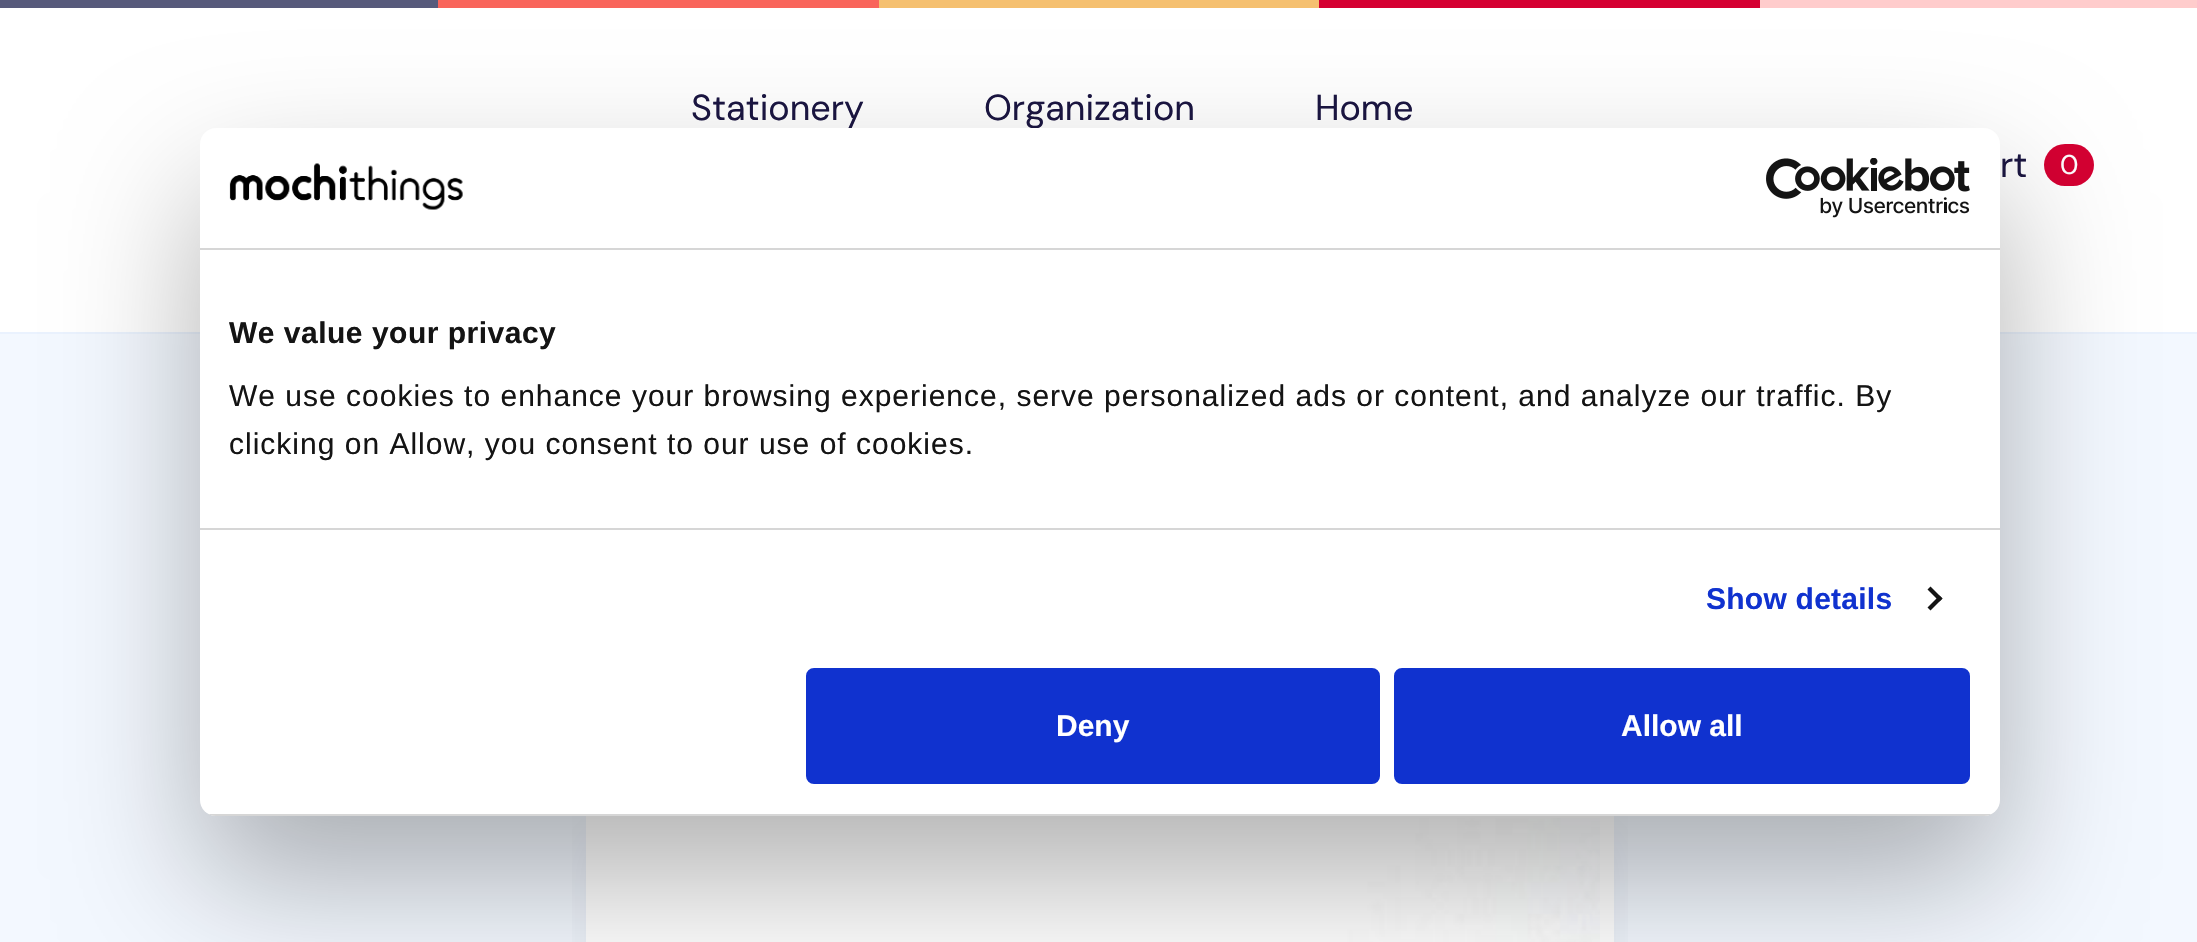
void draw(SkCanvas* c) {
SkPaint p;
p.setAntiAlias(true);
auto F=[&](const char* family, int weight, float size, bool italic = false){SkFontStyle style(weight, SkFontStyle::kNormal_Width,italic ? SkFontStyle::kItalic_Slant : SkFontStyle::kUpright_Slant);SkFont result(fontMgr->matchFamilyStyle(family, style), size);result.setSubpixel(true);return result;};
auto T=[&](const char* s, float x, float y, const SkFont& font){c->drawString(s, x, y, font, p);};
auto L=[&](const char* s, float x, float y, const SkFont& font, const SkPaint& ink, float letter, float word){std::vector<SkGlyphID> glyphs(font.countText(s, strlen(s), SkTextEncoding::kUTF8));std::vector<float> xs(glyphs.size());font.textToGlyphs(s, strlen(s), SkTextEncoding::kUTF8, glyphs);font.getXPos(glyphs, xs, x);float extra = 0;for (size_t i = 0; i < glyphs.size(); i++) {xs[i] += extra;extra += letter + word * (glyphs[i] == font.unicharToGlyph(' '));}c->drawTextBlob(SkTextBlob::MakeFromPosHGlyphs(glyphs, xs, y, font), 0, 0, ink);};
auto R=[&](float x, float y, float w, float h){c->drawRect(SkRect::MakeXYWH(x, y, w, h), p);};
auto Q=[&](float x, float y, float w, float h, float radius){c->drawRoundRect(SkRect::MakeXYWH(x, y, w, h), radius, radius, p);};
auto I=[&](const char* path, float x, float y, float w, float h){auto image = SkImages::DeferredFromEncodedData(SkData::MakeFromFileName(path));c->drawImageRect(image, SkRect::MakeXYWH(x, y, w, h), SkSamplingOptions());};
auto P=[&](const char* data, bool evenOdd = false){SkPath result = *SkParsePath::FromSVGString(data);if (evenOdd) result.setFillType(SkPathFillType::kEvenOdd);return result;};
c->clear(0xffffffff);
p.setColor(0xffeaf2fe);
R(0,332,2197,2);
I("1.png",0,0,2197,8);
auto f1 = F("DM Sans",400,36);
p.setColor(0xff1b1642);
T("Stationery",691,120,f1);
T("Organization",984,120,f1);
T("Home",1315,120,f1);
T("rt",2000,177,f1);
p.setColor(0xffd50032);
Q(2044,144,50,42,21);
auto f2 = F("DM Sans",400,27);
p.setColor(0xffffffff);
T("0",2060,174,f2);
p.setColor(0xfff3f8ff);
R(0,334,2197,608);
c->save();
c->clipRect(SkRect::MakeXYWH(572,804,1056,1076));
p.setColor(0x0f1b1642);
p.setMaskFilter(SkMaskFilter::MakeBlur(kNormal_SkBlurStyle, 24));
c->drawRect(SkRect::MakeXYWH(586,832,1028,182),p);
p.setMaskFilter(nullptr);
c->restore();
p.setStroke(true);
p.setStrokeWidth(14);
p.setColor(0xffffffff);
c->drawRect(SkRect::MakeXYWH(593,811,1014,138),p);
I("4.png",600,818,1000,124);
p.setStroke(false);
p.setColor(0x4d000000);
p.setMaskFilter(SkMaskFilter::MakeBlur(kNormal_SkBlurStyle, 68));
c->drawRoundRect(SkRect::MakeXYWH(200,192,1800,688),16,16,p);
p.setMaskFilter(nullptr);
p.setColor(0xffffffff);
Q(200,128,1800,688,16);
p.setColor(0xffd6d6d6);
R(200,248,1800,2);
I("2.png",229,163,234,47);
I("3.png",1766,158,204,60);
R(200,528,1800,2);
auto f3 = F("Liberation Sans",700,30);
p.setColor(0xff141414);
L("We value your privacy",229,343,f3,p,.5,0);
auto f4 = F("Liberation Sans",400,30);
L("We use cookies to enhance your browsing experience, serve personalized ads or content, and analyze our traffic. By",229,406,f4,p,1,0);
L("clicking on Allow, you consent to our use of cookies.",229,454,f4,p,1,0);
p.setColor(0xff1032cf);
L("Show details",1706,609,f3,p,.25,0);
p.setColor(0xff141414);
c->drawPath(P("M1930.5 586.5l12 12l-3 3l-12-12z"),p);
c->drawPath(P("M1939.5 595.5l3 3l-12 12l-3-3z"),p);
c->save();
c->clipPath(P("M216 128h1768c9 0 16 7 16 16v656c0 9-7 16-16 16h-1768c-9 0-16-7-16-16v-656c0-9 7-16 16-16z"),true);
p.setColor(0xffd6d6d6);
R(200,814,1800,2);
c->restore();
p.setColor(0xff1032cf);
c->drawRoundRect(SkRect::MakeXYWH(808,670,570,112),6,6,p);
p.setStroke(true);
p.setStrokeWidth(4);
c->drawRoundRect(SkRect::MakeXYWH(808,670,570,112),6,6,p);
p.setStroke(false);
p.setColor(0xffffffff);
T("Deny",1056,736,f3);
p.setColor(0xff1032cf);
c->drawRoundRect(SkRect::MakeXYWH(1396,670,572,112),6,6,p);
p.setStroke(true);
c->drawRoundRect(SkRect::MakeXYWH(1396,670,572,112),6,6,p);
p.setStroke(false);
p.setColor(0xffffffff);
T("Allow all",1621,736,f3);
}
